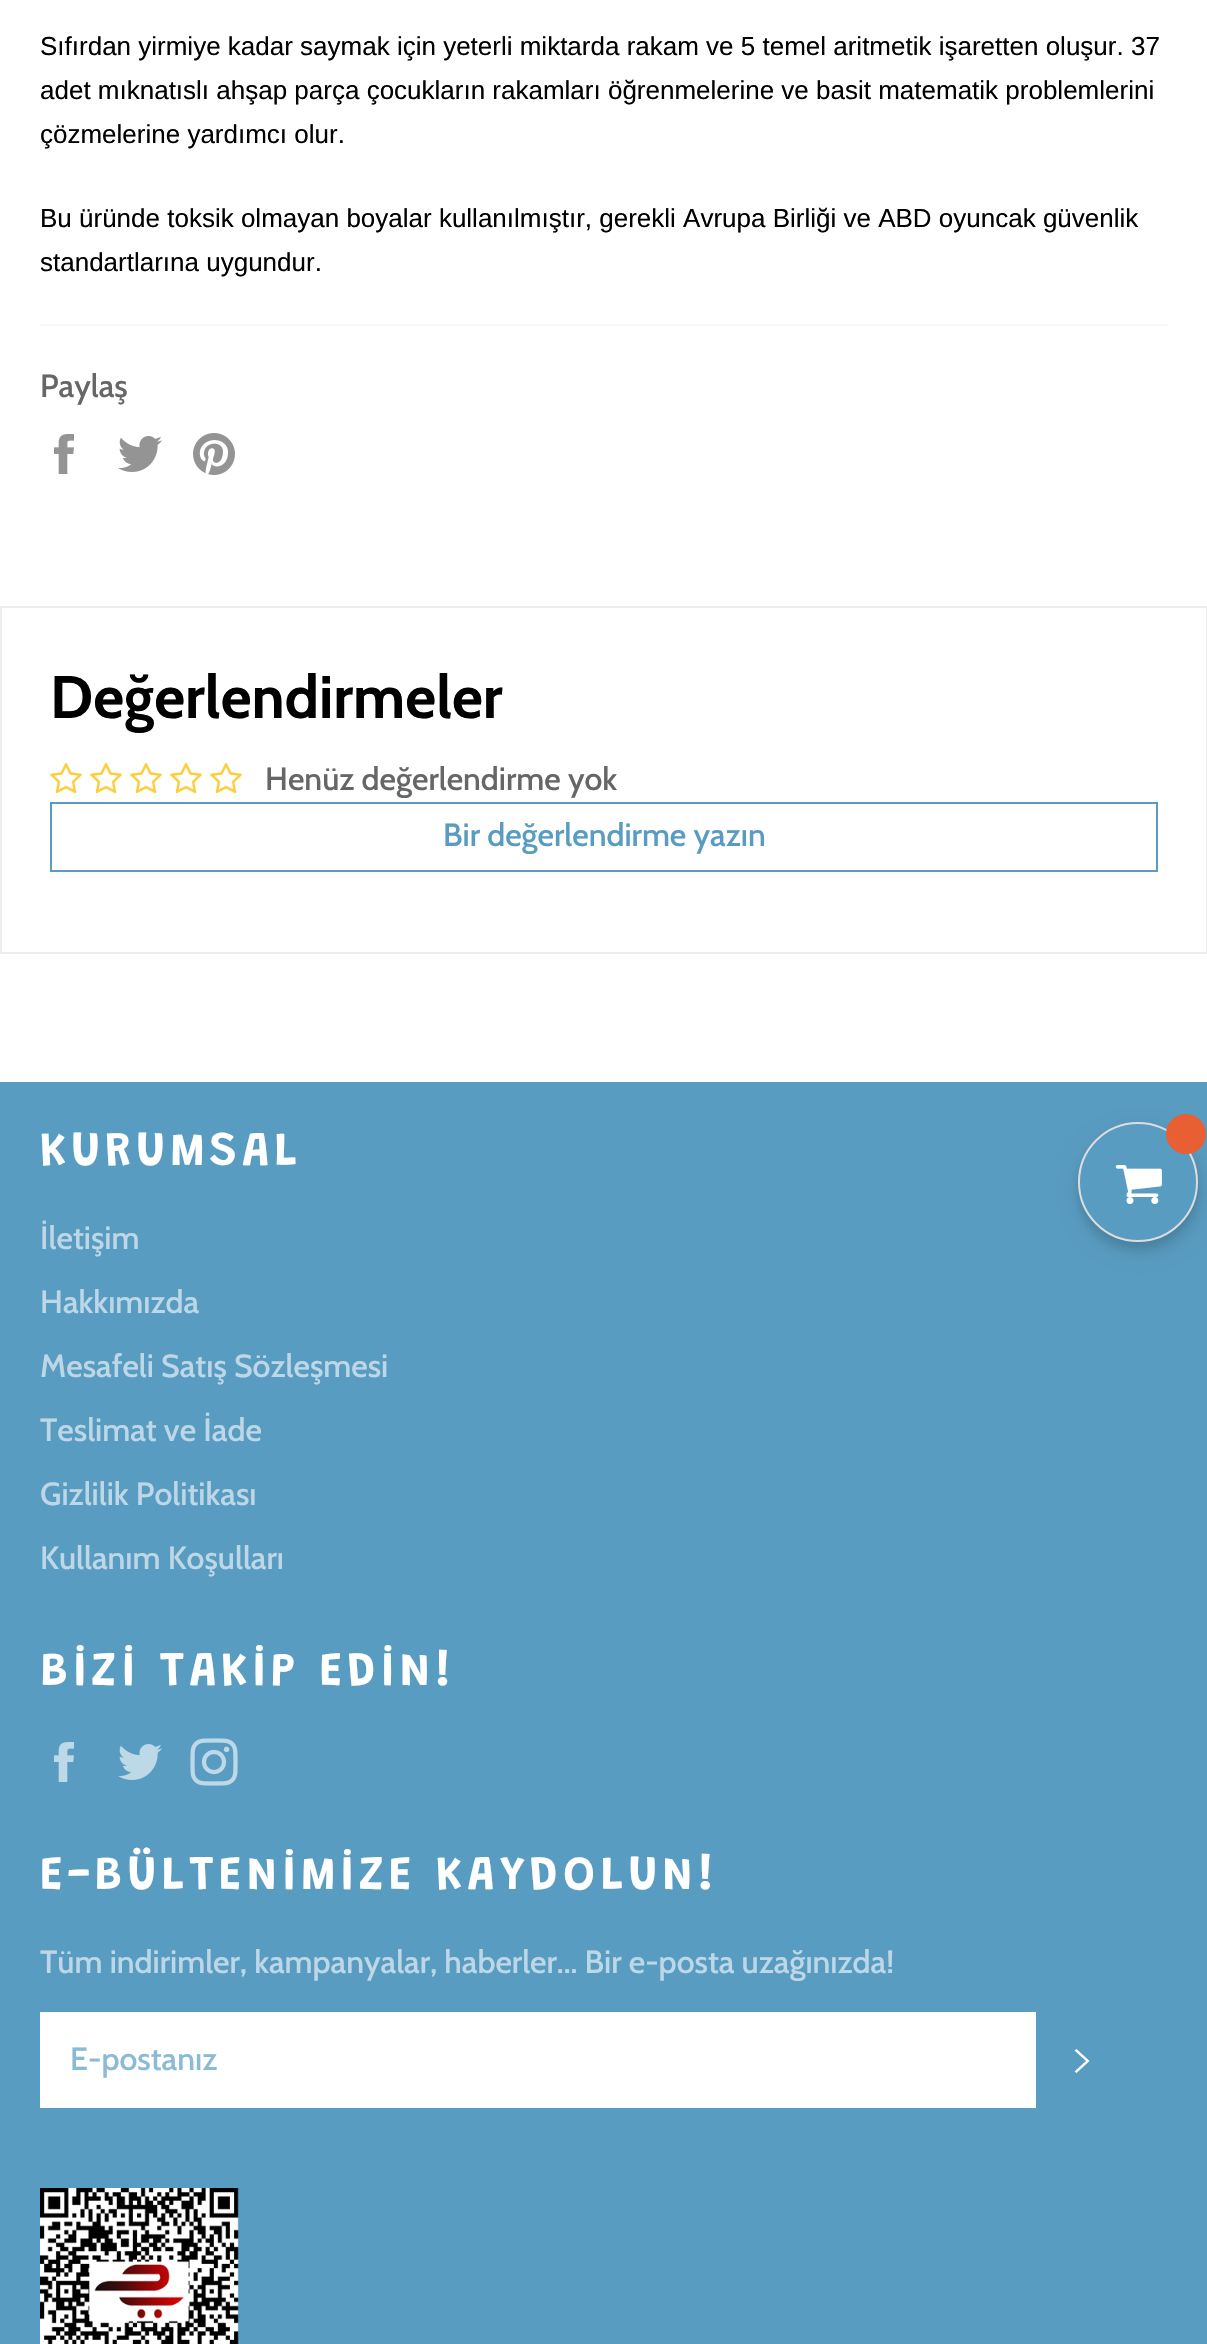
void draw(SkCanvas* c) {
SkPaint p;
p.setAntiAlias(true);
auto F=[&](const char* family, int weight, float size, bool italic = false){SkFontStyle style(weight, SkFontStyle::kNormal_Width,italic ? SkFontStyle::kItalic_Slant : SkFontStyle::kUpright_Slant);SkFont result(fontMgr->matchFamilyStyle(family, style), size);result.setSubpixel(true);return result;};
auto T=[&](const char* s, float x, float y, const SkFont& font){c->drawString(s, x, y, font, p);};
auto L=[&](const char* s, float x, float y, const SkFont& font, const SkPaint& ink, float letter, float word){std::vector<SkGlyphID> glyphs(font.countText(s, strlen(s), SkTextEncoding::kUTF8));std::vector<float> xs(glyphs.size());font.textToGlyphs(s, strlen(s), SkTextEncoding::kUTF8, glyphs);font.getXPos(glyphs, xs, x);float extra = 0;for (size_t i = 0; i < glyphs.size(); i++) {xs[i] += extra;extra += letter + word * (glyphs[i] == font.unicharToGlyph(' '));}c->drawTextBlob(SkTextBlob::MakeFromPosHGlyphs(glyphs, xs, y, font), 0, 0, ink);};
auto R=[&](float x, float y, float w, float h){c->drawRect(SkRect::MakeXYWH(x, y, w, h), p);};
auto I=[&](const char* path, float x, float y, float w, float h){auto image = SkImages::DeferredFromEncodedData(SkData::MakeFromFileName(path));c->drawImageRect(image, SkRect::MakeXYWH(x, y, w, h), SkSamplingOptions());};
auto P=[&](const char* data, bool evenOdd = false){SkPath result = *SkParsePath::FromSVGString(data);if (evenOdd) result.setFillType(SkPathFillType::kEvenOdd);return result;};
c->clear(0xffffffff);
auto f1 = F("Liberation Sans",400,26);
p.setColor(0xff000000);
T("Sıfırdan yirmiye kadar saymak için yeterli miktarda rakam ve 5 temel aritmetik işaretten oluşur. 37",40,55,f1);
T("adet mıknatıslı ahşap parça çocukların rakamları öğrenmelerine ve basit matematik problemlerini",40,99,f1);
T("çözmelerine yardımcı olur.",40,143,f1);
T("Bu üründe toksik olmayan boyalar kullanılmıştır, gerekli Avrupa Birliği ve ABD oyuncak güvenlik",40,227,f1);
T("standartlarına uygundur.",40,271,f1);
p.setColor(0xfff7f7f7);
R(40,324,1128,2);
auto f2 = F("Cabin",500,32);
p.setColor(0xff666666);
T("Paylaş",40,397,f2);
I("1.png",54,434,20,40);
I("2.png",118,436,44,36);
I("3.png",193,433,42,42);
p.setStroke(true);
p.setStrokeWidth(2);
p.setColor(0xffeeeeee);
c->drawRect(SkRect::MakeXYWH(1,607,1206,346),p);
auto f3 = F("Cabin",700,60);
p.setStroke(false);
p.setColor(0xff000000);
T("Değerlendirmeler",50,718,f3);
I("4.png",50,762,32,32);
I("4.png",90,762,32,32);
I("4.png",130,762,32,32);
I("4.png",170,762,32,32);
I("4.png",210,762,32,32);
p.setColor(0xff666666);
T("Henüz değerlendirme yok",265,790,f2);
p.setStroke(true);
p.setColor(0xff599cc1);
c->drawRect(SkRect::MakeXYWH(51,803,1106,68),p);
p.setStroke(false);
T("Bir değerlendirme yazın",443,846,f2);
R(0,1082,1207,1262);
auto f4 = F("Grandstander",600,48);
p.setColor(0xffffffff);
L("KURUMSAL",40,1165,f4,p,4.8,0);
p.setColor(0xffbdd7e6);
T("İletişim",40,1249,f2);
T("Hakkımızda",40,1313,f2);
T("Mesafeli Satış Sözleşmesi",40,1377,f2);
T("Teslimat ve İade",40,1441,f2);
T("Gizlilik Politikası",40,1505,f2);
T("Kullanım Koşulları",40,1569,f2);
p.setColor(0xffffffff);
L("BİZİ TAKİP EDİN!",40,1685,f4,p,4.8,0);
I("5.png",54,1742,20,40);
I("6.png",118,1744,44,36);
I("7.png",190,1738,48,48);
L("E-BÜLTENİMİZE KAYDOLUN!",40,1889,f4,p,4.8,0);
p.setColor(0xffbdd7e6);
T("Tüm indirimler, kampanyalar, haberler... Bir e-posta uzağınızda!",40,1973,f2);
p.setColor(0xffffffff);
R(40,2012,996,96);
p.setColor(0xff8bbad4);
T("E-postanız",70,2070,f2);
p.setColor(0xffffffff);
c->drawPath(P("M1074.5 2050.5l2-1.5l13 12l-13 12l-2-1.5l11.5-10.5z"),p);
I("8.png",40,2188,199,156);
p.setColor(0x14000000);
p.setMaskFilter(SkMaskFilter::MakeBlur(kNormal_SkBlurStyle, 4));
c->drawRoundRect(SkRect::MakeXYWH(1078,1130,120,120),60,60,p);
p.setMaskFilter(nullptr);
p.setColor(0x1f000000);
p.setMaskFilter(SkMaskFilter::MakeBlur(kNormal_SkBlurStyle, 10));
c->drawRoundRect(SkRect::MakeXYWH(1080,1130,120,120),60,60,p);
p.setMaskFilter(nullptr);
p.setColor(0xff599cc1);
c->drawCircle(1138,1182,59,p);
p.setStroke(true);
p.setColor(0xffdddddd);
c->drawCircle(1138,1182,59,p);
p.setStroke(false);
p.setColor(0xffe75f33);
c->drawCircle(1186,1134,20,p);
I("9.png",1115,1165,47,39);
}
